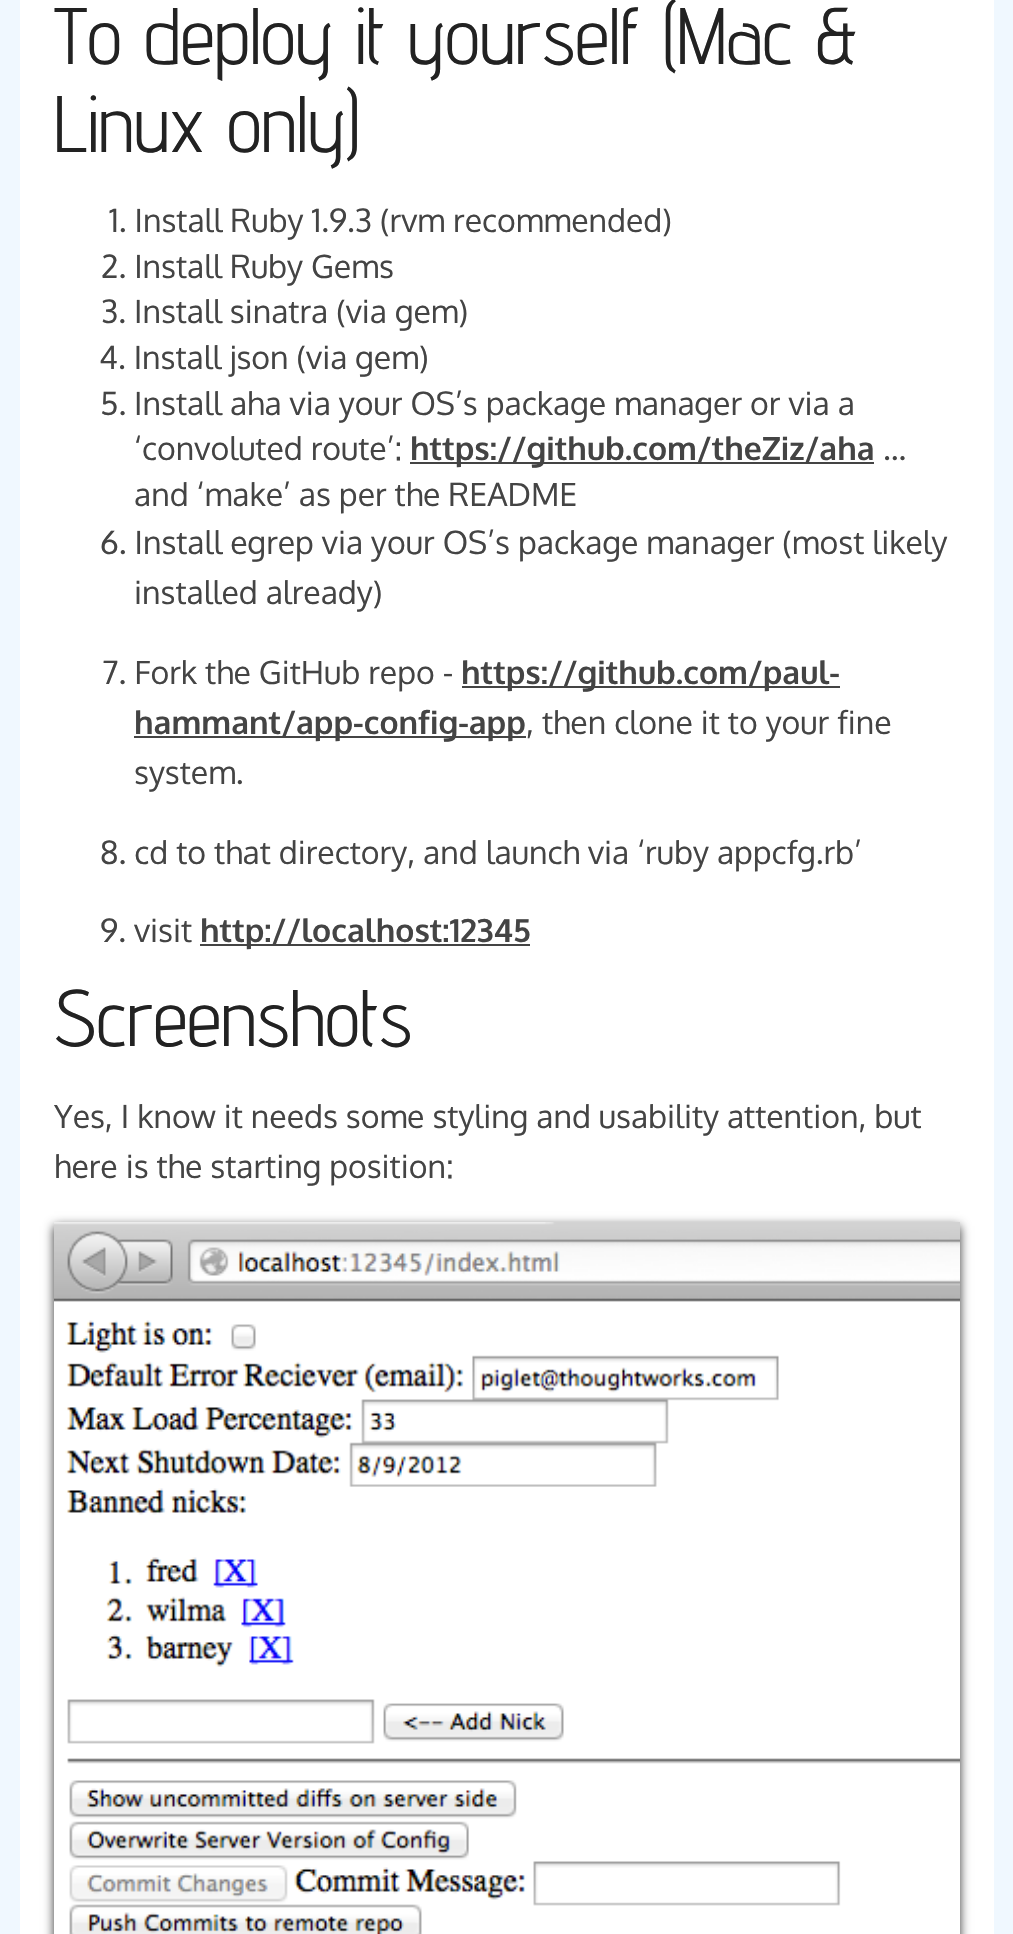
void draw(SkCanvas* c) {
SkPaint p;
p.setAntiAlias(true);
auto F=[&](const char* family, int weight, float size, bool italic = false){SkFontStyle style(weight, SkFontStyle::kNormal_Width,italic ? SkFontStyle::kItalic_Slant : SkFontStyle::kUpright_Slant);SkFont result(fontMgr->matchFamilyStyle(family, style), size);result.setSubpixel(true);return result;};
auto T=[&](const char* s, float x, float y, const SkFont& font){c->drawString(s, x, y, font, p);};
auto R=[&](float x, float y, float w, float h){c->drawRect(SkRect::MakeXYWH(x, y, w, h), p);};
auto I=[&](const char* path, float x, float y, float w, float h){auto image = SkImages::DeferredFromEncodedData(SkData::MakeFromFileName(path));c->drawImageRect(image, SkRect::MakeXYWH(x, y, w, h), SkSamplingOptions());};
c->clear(0xfff0f8ff);
p.setColor(0xffffffff);
R(20,0,974,1934);
auto f1 = F("Advent Pro",400,80);
p.setColor(0xff222222);
T("To deploy it yourself (Mac &",54,64,f1);
T("Linux only)",54,152,f1);
auto f2 = F("Oxygen",400,32);
p.setColor(0xff444444);
T("1. Install Ruby 1.9.3 (rvm recommended)",109,232,f2);
T("2. Install Ruby Gems",101,278,f2);
T("3. Install sinatra (via gem)",101,323,f2);
T("4. Install json (via gem)",99,369,f2);
T("5. Install aha via your OS’s package manager or via a",100,415,f2);
T("‘convoluted route’:",134,460,f2);
R(410,462,464,2);
auto f3 = F("Oxygen",700,32);
T("https://github.com/theZiz/aha",410,460,f3);
T("…",883,460,f2);
T("and ‘make’ as per the README",134,506,f2);
T("6. Install egrep via your OS’s package manager (most likely",100,554,f2);
T("installed already)",134,604,f2);
T("7. Fork the GitHub repo -",102,684,f2);
R(462,686,378,2);
T("https://github.com/paul-",461,684,f3);
R(134,736,392,2);
T("hammant/app-config-app",134,734,f3);
T(", then clone it to your fine",526,734,f2);
T("system.",134,784,f2);
T("8. cd to that directory, and launch via ‘ruby appcfg.rb’",100,864,f2);
T("9. visit",100,942,f2);
R(200,944,330,2);
T("http://localhost:12345",200,942,f3);
p.setColor(0xff222222);
T("Screenshots",54,1046,f1);
p.setColor(0xff444444);
T("Yes, I know it needs some styling and usability attention, but",54,1128,f2);
T("here is the starting position:",54,1178,f2);
p.setColor(0xcc000000);
p.setMaskFilter(SkMaskFilter::MakeBlur(kNormal_SkBlurStyle, 5));
c->drawRect(SkRect::MakeXYWH(54,1226,906,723),p);
p.setMaskFilter(nullptr);
I("1.png",54,1222,906,712);
}
